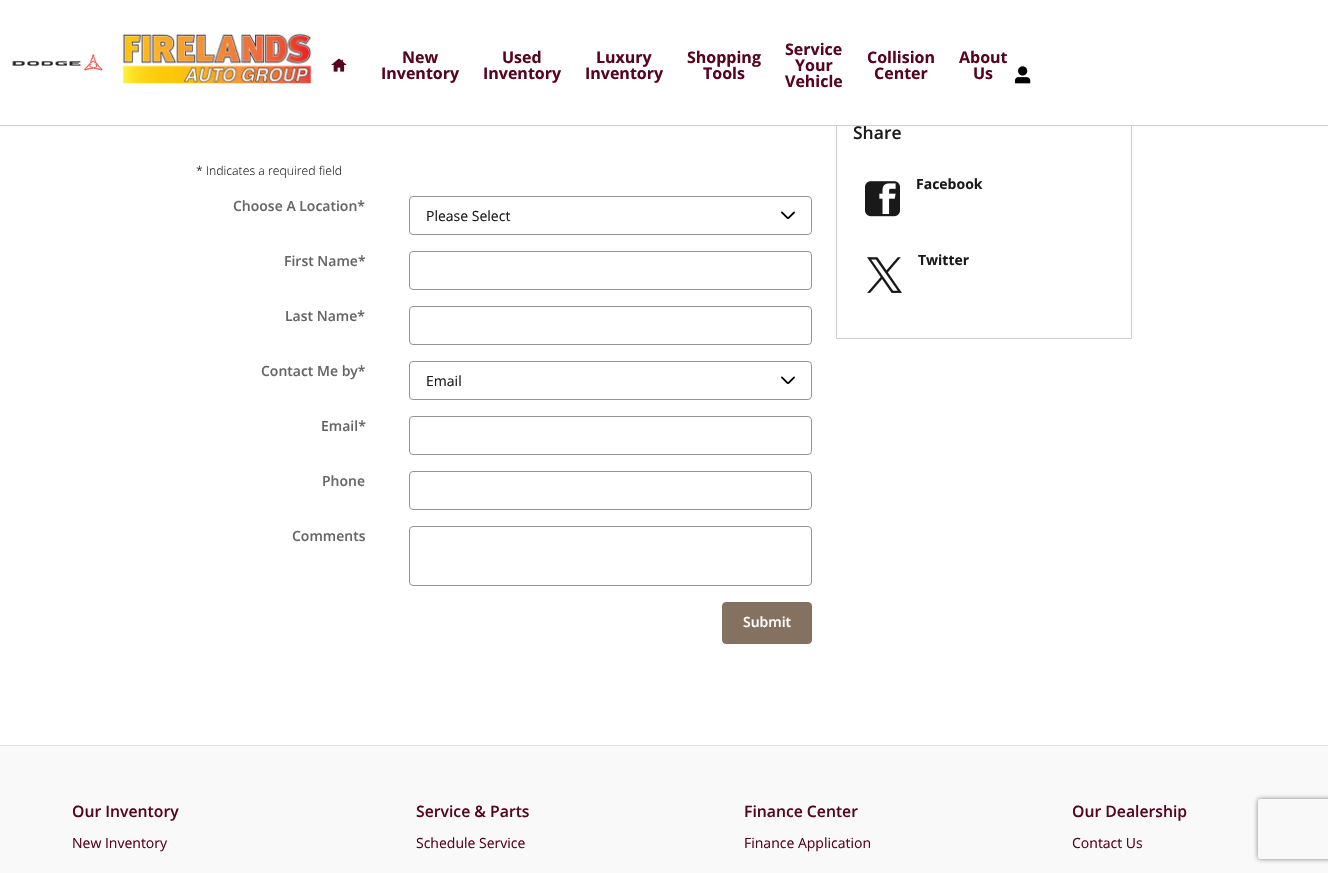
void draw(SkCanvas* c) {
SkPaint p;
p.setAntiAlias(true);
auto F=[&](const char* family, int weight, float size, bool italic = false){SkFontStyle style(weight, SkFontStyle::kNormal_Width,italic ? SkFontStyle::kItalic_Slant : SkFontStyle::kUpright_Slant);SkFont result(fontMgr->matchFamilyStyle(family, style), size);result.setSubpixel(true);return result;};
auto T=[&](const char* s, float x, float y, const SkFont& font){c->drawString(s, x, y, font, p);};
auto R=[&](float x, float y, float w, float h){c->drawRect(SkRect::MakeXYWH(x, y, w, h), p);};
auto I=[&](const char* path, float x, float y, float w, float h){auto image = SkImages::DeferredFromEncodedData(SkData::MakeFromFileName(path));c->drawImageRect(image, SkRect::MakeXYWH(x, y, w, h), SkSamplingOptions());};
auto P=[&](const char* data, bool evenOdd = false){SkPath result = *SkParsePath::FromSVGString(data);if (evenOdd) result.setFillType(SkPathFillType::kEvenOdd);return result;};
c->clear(0xffffffff);
p.setStroke(true);
p.setStrokeWidth(1);
p.setColor(0xffcecfd1);
c->drawRect(SkRect::MakeXYWH(836.5,106.5,295,232),p);
p.setStroke(false);
p.setColor(0xffffffff);
R(836,106,296,19);
auto f1 = F("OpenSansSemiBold",600,17.5);
p.setColor(0xff1a1a1a);
T("Share",853,139,f1);
p.setColor(0xffcecfd1);
R(0,125,1328,1);
I("1.png",12,54,91,17);
I("2.png",122,33,190,51);
I("3.png",331,58,16,14);
auto f2 = F("Open Sans",700,16);
p.setColor(0xff58041e);
T("New",402,63,f2);
T("Inventory",381,79,f2);
T("Used",502,63,f2);
T("Inventory",483,79,f2);
T("Luxury",596,63,f2);
T("Inventory",585,79,f2);
T("Shopping",687,63,f2);
T("Tools",703,79,f2);
T("Service",785,55,f2);
T("Your",795,71,f2);
T("Vehicle",785,87,f2);
T("Collision",867,63,f2);
T("Center",874,79,f2);
T("About",959,63,f2);
T("Us",973,79,f2);
I("4.png",1014,66,17,18);
auto f3 = F("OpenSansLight",300,12.25);
p.setColor(0xff1a1a1a);
T("* Indicates a required field",196,175,f3);
auto f4 = F("OpenSansSemiBold",600,14);
p.setColor(0xff666666);
T("Choose A Location*",233,211,f4);
I("5.png",781,211,14,8);
p.setStroke(true);
p.setColor(0xff949599);
c->drawRoundRect(SkRect::MakeXYWH(409.5,196.5,402,38),3.5,3.5,p);
auto f5 = F("Open Sans",400,14);
p.setStroke(false);
p.setColor(0xff1a1a1a);
T("Please Select",426,221,f5);
p.setColor(0xff666666);
T("First Name*",284,266,f4);
p.setStroke(true);
p.setColor(0xff949599);
c->drawRoundRect(SkRect::MakeXYWH(409.5,251.5,402,38),3.5,3.5,p);
p.setStroke(false);
p.setColor(0xff666666);
T("Last Name*",285,321,f4);
p.setStroke(true);
p.setColor(0xff949599);
c->drawRoundRect(SkRect::MakeXYWH(409.5,306.5,402,38),3.5,3.5,p);
p.setStroke(false);
p.setColor(0xff666666);
T("Contact Me by*",261,376,f4);
I("5.png",781,376,14,8);
p.setStroke(true);
p.setColor(0xff949599);
c->drawRoundRect(SkRect::MakeXYWH(409.5,361.5,402,38),3.5,3.5,p);
p.setStroke(false);
p.setColor(0xff1a1a1a);
T("Email",426,386,f5);
p.setColor(0xff666666);
T("Email*",321,431,f4);
p.setStroke(true);
p.setColor(0xff949599);
c->drawRoundRect(SkRect::MakeXYWH(409.5,416.5,402,38),3.5,3.5,p);
p.setStroke(false);
p.setColor(0xff666666);
T("Phone",322,486,f4);
p.setStroke(true);
p.setColor(0xff949599);
c->drawRoundRect(SkRect::MakeXYWH(409.5,471.5,402,38),3.5,3.5,p);
p.setStroke(false);
p.setColor(0xff666666);
T("Comments",292,541,f4);
p.setStroke(true);
p.setColor(0xff949599);
c->drawRoundRect(SkRect::MakeXYWH(409.5,526.5,402,59),3.5,3.5,p);
p.setStroke(false);
p.setColor(0xff847160);
c->drawRoundRect(SkRect::MakeXYWH(722.5,602.5,89,41),3.5,3.5,p);
p.setStroke(true);
c->drawRoundRect(SkRect::MakeXYWH(722.5,602.5,89,41),3.5,3.5,p);
p.setStroke(false);
p.setColor(0xffffffff);
T("Submit",743,627,f4);
I("6.png",865,181,35,36);
auto f6 = F("Open Sans",700,14);
p.setColor(0xff1a1a1a);
T("Facebook",916,189,f6);
I("7.png",867,257,35,36);
T("Twitter",918,265,f6);
p.setColor(0xfff9f9fa);
R(0,746,1328,127);
p.setColor(0xffe0e0e1);
R(0,745,1328,1);
auto f7 = F("OpenSansSemiBold",600,15.75);
p.setColor(0xff58041e);
T("Our Inventory",72,817,f7);
T("New Inventory",72,848,f5);
T("Service & Parts",416,817,f7);
T("Schedule Service",416,848,f5);
T("Finance Center",744,817,f7);
T("Finance Application",744,848,f5);
T("Our Dealership",1072,817,f7);
T("Contact Us",1072,848,f5);
c->save();
c->clipPath(P("M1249 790h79v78h-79zm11 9h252c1 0 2 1 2 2v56c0 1-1 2-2 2h-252c-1 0-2-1-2-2v-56c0-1 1-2 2-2z",true),true);
p.setColor(0xff808080);
p.setMaskFilter(SkMaskFilter::MakeBlur(kNormal_SkBlurStyle, 2.5));
c->drawRoundRect(SkRect::MakeXYWH(1258,799,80,60),2,2,p);
p.setMaskFilter(nullptr);
c->restore();
}
